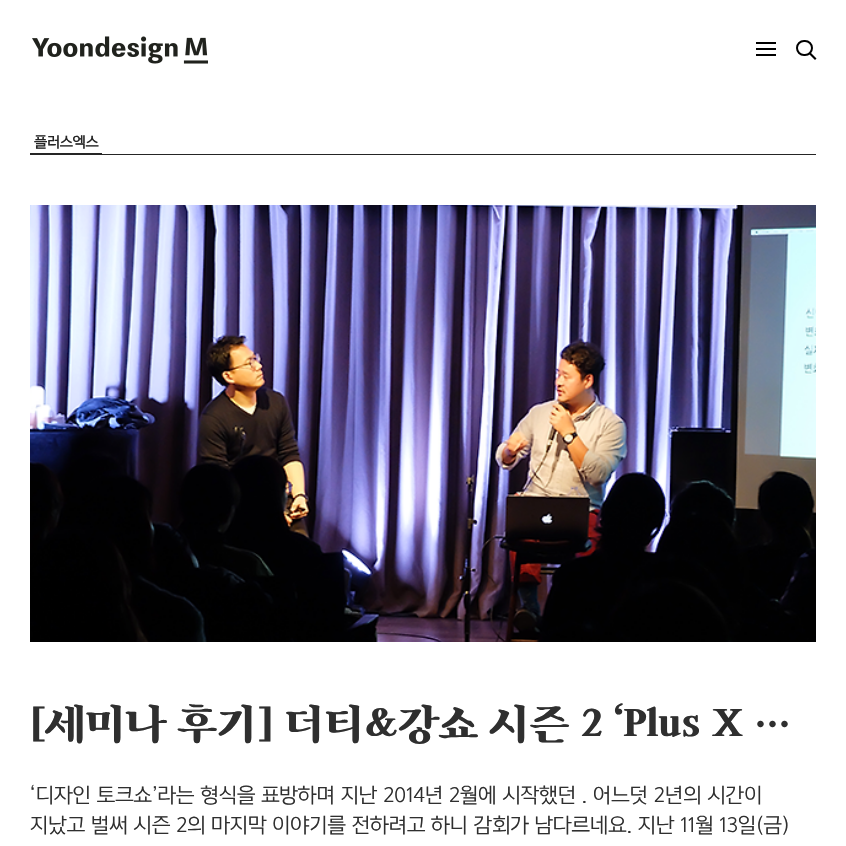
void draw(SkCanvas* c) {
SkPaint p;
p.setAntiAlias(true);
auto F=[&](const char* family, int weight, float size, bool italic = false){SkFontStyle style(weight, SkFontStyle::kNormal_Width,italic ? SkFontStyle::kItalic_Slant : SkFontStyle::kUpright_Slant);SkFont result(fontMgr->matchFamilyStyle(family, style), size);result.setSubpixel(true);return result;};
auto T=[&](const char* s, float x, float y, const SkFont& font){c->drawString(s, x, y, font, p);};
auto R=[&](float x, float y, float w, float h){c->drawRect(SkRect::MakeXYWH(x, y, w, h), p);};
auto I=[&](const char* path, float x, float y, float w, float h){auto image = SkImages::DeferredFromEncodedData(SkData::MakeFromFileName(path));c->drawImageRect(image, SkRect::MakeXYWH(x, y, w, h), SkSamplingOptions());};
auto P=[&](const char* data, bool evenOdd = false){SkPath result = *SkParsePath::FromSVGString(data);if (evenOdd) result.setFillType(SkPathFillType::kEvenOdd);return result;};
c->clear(0xffffffff);
I("1.png",32,36,176,28);
p.setColor(0xff000000);
R(756,42,20,2);
R(756,48,20,2);
R(756,54,20,2);
p.setStroke(true);
p.setStrokeWidth(2);
c->drawRoundRect(SkRect::MakeXYWH(797,41,15,14),7,7,p);
p.setStroke(false);
c->drawPath(P("M810 52l6.5 6.5l-1.5 1.5l-6.5-6.5z"),p);
p.setColor(0xff252525);
R(30,154,786,1);
R(30,153,72,1);
auto f1 = F("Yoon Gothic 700",700,14);
T("플러스엑스",34,147,f1);
I("2.png",30,205,786,437);
auto f2 = F("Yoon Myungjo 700",400,40);
p.setColor(0xff2f2f2f);
T("[세미나 후기] 더티&강쇼 시즌 2 ‘Plus X …",30,736,f2);
auto f3 = F("Yoon Gothic 700",400,20);
T("‘디자인 토크쇼’라는 형식을 표방하며 지난 2014년 2월에 시작했던 . 어느덧 2년의 시간이",30,802,f3);
T("지났고 벌써 시즌 2의 마지막 이야기를 전하려고 하니 감회가 남다르네요. 지난 11월 13일(금)",30,832,f3);
}
